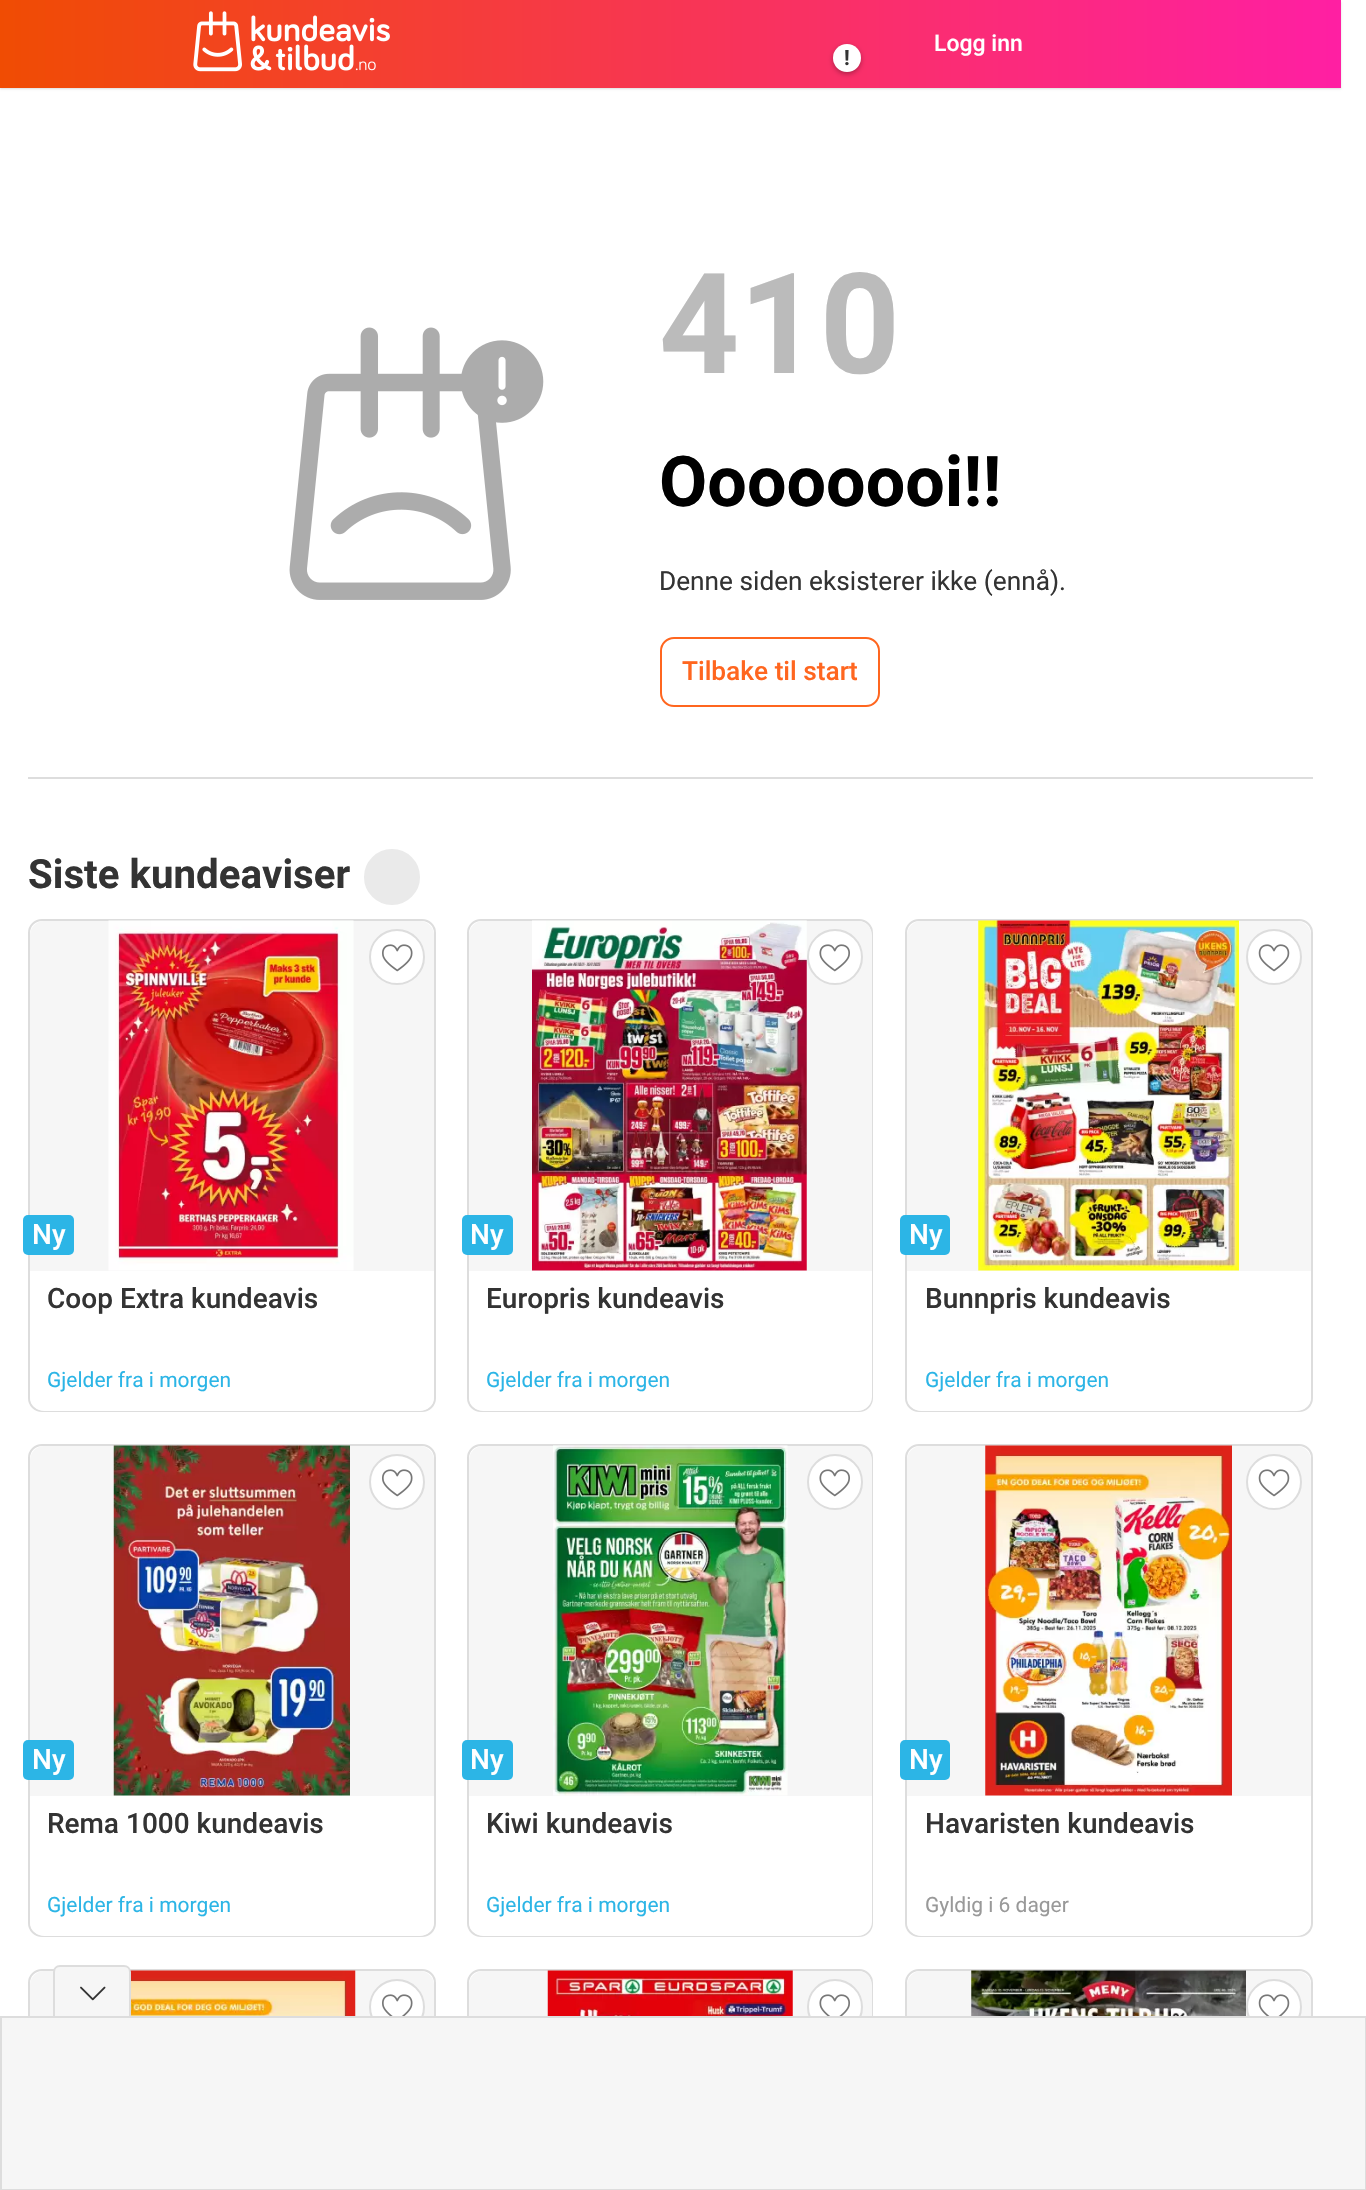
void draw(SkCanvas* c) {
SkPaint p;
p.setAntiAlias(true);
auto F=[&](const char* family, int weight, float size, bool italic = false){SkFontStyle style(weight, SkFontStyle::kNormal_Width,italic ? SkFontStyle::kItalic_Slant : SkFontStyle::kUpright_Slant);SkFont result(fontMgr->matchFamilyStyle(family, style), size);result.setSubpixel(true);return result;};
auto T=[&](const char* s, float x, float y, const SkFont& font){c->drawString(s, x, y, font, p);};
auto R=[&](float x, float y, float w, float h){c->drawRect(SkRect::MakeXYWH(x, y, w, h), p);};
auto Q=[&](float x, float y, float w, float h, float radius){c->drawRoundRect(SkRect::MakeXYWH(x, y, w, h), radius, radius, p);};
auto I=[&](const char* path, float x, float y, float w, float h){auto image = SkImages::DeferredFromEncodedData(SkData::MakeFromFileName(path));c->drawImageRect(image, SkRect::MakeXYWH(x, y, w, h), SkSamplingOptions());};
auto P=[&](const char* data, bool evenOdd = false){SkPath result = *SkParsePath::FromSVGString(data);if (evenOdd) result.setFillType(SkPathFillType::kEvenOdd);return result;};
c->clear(0xffffffff);
p.setColor(0xffdddddd);
p.setMaskFilter(SkMaskFilter::MakeBlur(kNormal_SkBlurStyle, 1));
c->drawRect(SkRect::MakeXYWH(0,2,1341,87),p);
p.setMaskFilter(nullptr);
{
const SkColor colors[] = {0xffff1fa3,0xfff04c03};
const float stops[] = {0,1};
const SkPoint ends[] = {{1341,44}, {0,44}};
p.setShader(SkGradientShader::MakeLinear(ends, colors, stops, 2, SkTileMode::kClamp));
p.setAlpha(255);
}
R(0,0,1341,88);
I("1.png",193,11,197,61);
auto f1 = F("Roboto",500,23);
p.setShader(nullptr);
p.setColor(0xffffffff);
T("Logg inn",934,51,f1);
p.setColor(0x4d000000);
p.setMaskFilter(SkMaskFilter::MakeBlur(kNormal_SkBlurStyle, 2.5));
c->drawRoundRect(SkRect::MakeXYWH(833,46,28,28),14,14,p);
p.setMaskFilter(nullptr);
p.setColor(0xffffffff);
c->drawCircle(847,58,14,p);
auto f2 = F("Roboto",700,21);
p.setColor(0xff333333);
T("!",844,65,f2);
p.setColor(0xffdddddd);
R(28,777,1285,2);
I("2.png",289,327,255,273);
auto f3 = F("Roboto",700,140);
p.setColor(0xffbbbbbb);
T("410",659,373,f3);
auto f4 = F("Roboto",700,70);
p.setColor(0xff000000);
T("Oooooooi!!",659,506,f4);
auto f5 = F("Roboto",400,26.25);
p.setColor(0xff333333);
T("Denne siden eksisterer ikke (ennå).",659,590,f5);
p.setStroke(true);
p.setStrokeWidth(2);
p.setColor(0xffff661f);
c->drawRoundRect(SkRect::MakeXYWH(661,638,218,68),13,13,p);
auto f6 = F("Roboto",500,26.25);
p.setStroke(false);
T("Tilbake til start",682,680,f6);
auto f7 = F("Roboto",700,40.25);
p.setColor(0xff333333);
T("Siste kundeaviser",28,888,f7);
p.setColor(0xffeaeaea);
c->drawCircle(392,877,27,p);
p.setStroke(true);
c->drawCircle(392,877,27,p);
p.setColor(0xffdddddd);
c->drawRoundRect(SkRect::MakeXYWH(29,920,406,491),13,13,p);
p.setStroke(false);
p.setColor(0xfff6f6f6);
c->drawPath(P("M44 921h376c7.5 0 14 6.5 14 14v336h-404v-336c0-7.5 6.5-14 14-14z"),p);
p.setColor(0xffffffff);
c->drawCircle(397,957,27,p);
p.setStroke(true);
p.setColor(0xffdddddd);
c->drawCircle(397,957,27,p);
I("3.png",382,944,31,28);
I("4.png",108,920,246,351);
p.setStroke(false);
p.setColor(0xff2cb5e6);
Q(23,1215,51,40,5);
auto f8 = F("Roboto",500,28);
p.setColor(0xffffffff);
T("Ny",32,1244,f8);
c->drawPath(P("M30 1271h404v126c0 7.5-6.5 14-14 14h-376c-7.5 0-14-6.5-14-14z"),p);
p.setColor(0xff333333);
T("Coop Extra kundeavis",47,1308,f8);
auto f9 = F("Roboto",400,21);
p.setColor(0xff2cb5e6);
T("Gjelder fra i morgen",47,1387,f9);
p.setStroke(true);
p.setColor(0xffdddddd);
c->drawRoundRect(SkRect::MakeXYWH(468,920,404,491),13,13,p);
p.setStroke(false);
p.setColor(0xfff6f6f6);
c->drawPath(P("M483 921h375c7.5 0 14 6.5 14 14v336h-403v-336c0-7.5 6.5-14 14-14z"),p);
p.setColor(0xffffffff);
c->drawCircle(835,957,27,p);
p.setStroke(true);
p.setColor(0xffdddddd);
c->drawCircle(835,957,27,p);
I("5.png",819,944,31,28);
I("6.png",532,920,275,351);
p.setStroke(false);
p.setColor(0xff2cb5e6);
Q(462,1215,51,40,5);
p.setColor(0xffffffff);
T("Ny",470,1244,f8);
c->drawPath(P("M469 1271h403v126c0 7.5-6.5 14-14 14h-375c-7.5 0-14-6.5-14-14z"),p);
p.setColor(0xff333333);
T("Europris kundeavis",486,1308,f8);
p.setColor(0xff2cb5e6);
T("Gjelder fra i morgen",486,1387,f9);
p.setStroke(true);
p.setColor(0xffdddddd);
c->drawRoundRect(SkRect::MakeXYWH(906,920,406,491),13,13,p);
p.setStroke(false);
p.setColor(0xfff6f6f6);
c->drawPath(P("M921 921h376c7.5 0 14 6.5 14 14v336h-404v-336c0-7.5 6.5-14 14-14z"),p);
p.setColor(0xffffffff);
c->drawCircle(1274,957,27,p);
p.setStroke(true);
p.setColor(0xffdddddd);
c->drawCircle(1274,957,27,p);
I("7.png",1258,944,32,28);
I("8.png",978,920,261,351);
p.setStroke(false);
p.setColor(0xff2cb5e6);
Q(900,1215,50,40,5);
p.setColor(0xffffffff);
T("Ny",909,1244,f8);
c->drawPath(P("M907 1271h404v126c0 7.5-6.5 14-14 14h-376c-7.5 0-14-6.5-14-14z"),p);
p.setColor(0xff333333);
T("Bunnpris kundeavis",925,1308,f8);
p.setColor(0xff2cb5e6);
T("Gjelder fra i morgen",925,1387,f9);
p.setStroke(true);
p.setColor(0xffdddddd);
c->drawRoundRect(SkRect::MakeXYWH(29,1445,406,491),13,13,p);
p.setStroke(false);
p.setColor(0xfff6f6f6);
c->drawPath(P("M44 1446h376c7.5 0 14 6.5 14 14v336h-404v-336c0-7.5 6.5-14 14-14z"),p);
p.setColor(0xffffffff);
c->drawCircle(397,1482,27,p);
p.setStroke(true);
p.setColor(0xffdddddd);
c->drawCircle(397,1482,27,p);
I("3.png",382,1469,31,28);
I("9.png",113,1445,237,351);
p.setStroke(false);
p.setColor(0xff2cb5e6);
Q(23,1740,51,40,5);
p.setColor(0xffffffff);
T("Ny",32,1769,f8);
c->drawPath(P("M30 1796h404v126c0 7.5-6.5 14-14 14h-376c-7.5 0-14-6.5-14-14z"),p);
p.setColor(0xff333333);
T("Rema 1000 kundeavis",47,1833,f8);
p.setColor(0xff2cb5e6);
T("Gjelder fra i morgen",47,1912,f9);
p.setStroke(true);
p.setColor(0xffdddddd);
c->drawRoundRect(SkRect::MakeXYWH(468,1445,404,491),13,13,p);
p.setStroke(false);
p.setColor(0xfff6f6f6);
c->drawPath(P("M483 1446h375c7.5 0 14 6.5 14 14v336h-403v-336c0-7.5 6.5-14 14-14z"),p);
p.setColor(0xffffffff);
c->drawCircle(835,1482,27,p);
p.setStroke(true);
p.setColor(0xffdddddd);
c->drawCircle(835,1482,27,p);
I("5.png",819,1469,31,28);
I("10.png",553,1445,235,351);
p.setStroke(false);
p.setColor(0xff2cb5e6);
Q(462,1740,51,40,5);
p.setColor(0xffffffff);
T("Ny",470,1769,f8);
c->drawPath(P("M469 1796h403v126c0 7.5-6.5 14-14 14h-375c-7.5 0-14-6.5-14-14z"),p);
p.setColor(0xff333333);
T("Kiwi kundeavis",486,1833,f8);
p.setColor(0xff2cb5e6);
T("Gjelder fra i morgen",486,1912,f9);
p.setStroke(true);
p.setColor(0xffdddddd);
c->drawRoundRect(SkRect::MakeXYWH(906,1445,406,491),13,13,p);
p.setStroke(false);
p.setColor(0xfff6f6f6);
c->drawPath(P("M921 1446h376c7.5 0 14 6.5 14 14v336h-404v-336c0-7.5 6.5-14 14-14z"),p);
p.setColor(0xffffffff);
c->drawCircle(1274,1482,27,p);
p.setStroke(true);
p.setColor(0xffdddddd);
c->drawCircle(1274,1482,27,p);
I("7.png",1258,1469,32,28);
I("11.png",985,1445,247,351);
p.setStroke(false);
p.setColor(0xff2cb5e6);
Q(900,1740,50,40,5);
p.setColor(0xffffffff);
T("Ny",909,1769,f8);
c->drawPath(P("M907 1796h404v126c0 7.5-6.5 14-14 14h-376c-7.5 0-14-6.5-14-14z"),p);
p.setColor(0xff333333);
T("Havaristen kundeavis",925,1833,f8);
p.setColor(0xff999999);
T("Gyldig i 6 dager",925,1912,f9);
p.setStroke(true);
p.setColor(0xffdddddd);
c->drawRoundRect(SkRect::MakeXYWH(29,1970,406,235),13,13,p);
p.setStroke(false);
p.setColor(0xfff6f6f6);
c->drawPath(P("M44 1971h376c7.5 0 14 6.5 14 14v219h-404v-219c0-7.5 6.5-14 14-14z"),p);
I("12.png",130,1970,226,46);
p.setColor(0xffffffff);
c->drawCircle(397,2007,27,p);
p.setStroke(true);
p.setColor(0xffdddddd);
c->drawCircle(397,2007,27,p);
I("13.png",382,1994,31,22);
c->drawRoundRect(SkRect::MakeXYWH(468,1970,404,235),13,13,p);
p.setStroke(false);
p.setColor(0xfff6f6f6);
c->drawPath(P("M483 1971h375c7.5 0 14 6.5 14 14v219h-403v-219c0-7.5 6.5-14 14-14z"),p);
I("14.png",547,1970,246,46);
p.setColor(0xffffffff);
c->drawCircle(835,2007,27,p);
p.setStroke(true);
p.setColor(0xffdddddd);
c->drawCircle(835,2007,27,p);
I("15.png",819,1994,31,22);
c->drawRoundRect(SkRect::MakeXYWH(906,1970,406,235),13,13,p);
p.setStroke(false);
p.setColor(0xfff6f6f6);
c->drawPath(P("M921 1971h376c7.5 0 14 6.5 14 14v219h-404v-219c0-7.5 6.5-14 14-14z"),p);
I("16.png",971,1970,275,46);
p.setColor(0xffffffff);
c->drawCircle(1274,2007,27,p);
p.setStroke(true);
p.setColor(0xffdddddd);
c->drawCircle(1274,2007,27,p);
I("17.png",1258,1994,32,22);
p.setStroke(false);
p.setColor(0xfff6f6f6);
c->drawRect(SkRect::MakeXYWH(1,2017,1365,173),p);
p.setStroke(true);
p.setColor(0xffdddddd);
c->drawRect(SkRect::MakeXYWH(1,2017,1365,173),p);
p.setStroke(false);
p.setColor(0xfff6f6f6);
c->drawPath(P("M60 1966h64c3.5 0 6 2.5 6 6v45h-76v-45c0-3.5 2.5-6 6-6z"),p);
p.setStroke(true);
p.setColor(0xffdddddd);
c->drawPath(P("M60 1966h64c3.5 0 6 2.5 6 6v45h-76v-45c0-3.5 2.5-6 6-6z"),p);
I("18.png",80,1986,26,15);
}
